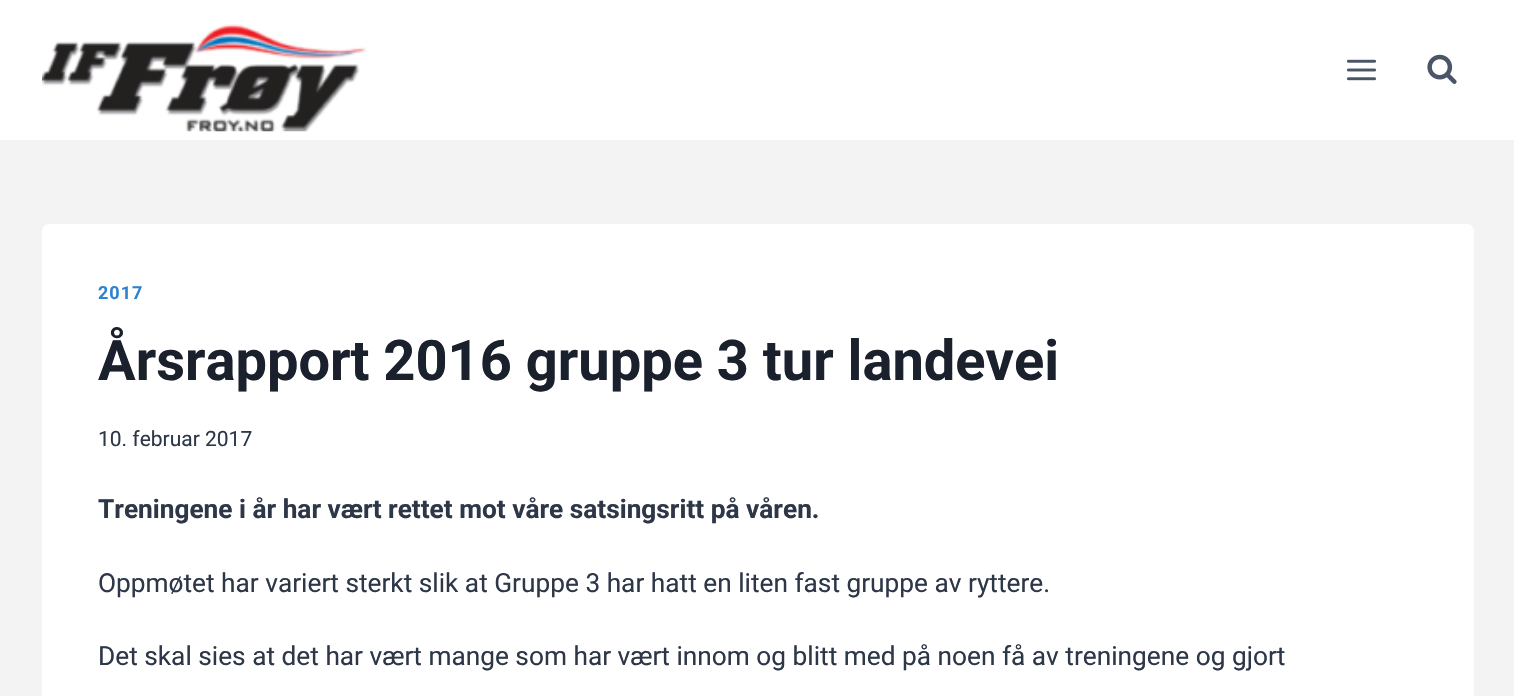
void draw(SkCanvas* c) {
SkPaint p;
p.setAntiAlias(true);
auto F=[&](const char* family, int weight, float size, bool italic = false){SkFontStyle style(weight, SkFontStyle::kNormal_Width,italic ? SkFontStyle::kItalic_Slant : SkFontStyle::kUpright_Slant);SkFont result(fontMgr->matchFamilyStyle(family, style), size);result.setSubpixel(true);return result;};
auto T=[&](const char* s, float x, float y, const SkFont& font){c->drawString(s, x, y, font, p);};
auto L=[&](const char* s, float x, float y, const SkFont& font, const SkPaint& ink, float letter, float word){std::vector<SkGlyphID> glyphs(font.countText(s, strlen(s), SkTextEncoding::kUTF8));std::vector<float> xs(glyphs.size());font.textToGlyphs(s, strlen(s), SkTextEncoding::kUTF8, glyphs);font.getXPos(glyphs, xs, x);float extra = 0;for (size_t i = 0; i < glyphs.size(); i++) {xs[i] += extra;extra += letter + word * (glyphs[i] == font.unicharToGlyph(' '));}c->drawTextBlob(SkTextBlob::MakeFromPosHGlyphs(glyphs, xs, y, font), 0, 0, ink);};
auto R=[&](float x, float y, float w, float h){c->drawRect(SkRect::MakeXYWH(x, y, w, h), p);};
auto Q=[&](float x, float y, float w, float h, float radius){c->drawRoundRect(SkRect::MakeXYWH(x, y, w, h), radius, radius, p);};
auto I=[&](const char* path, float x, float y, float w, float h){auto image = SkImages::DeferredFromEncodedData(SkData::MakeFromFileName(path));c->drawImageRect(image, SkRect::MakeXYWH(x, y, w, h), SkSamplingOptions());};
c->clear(0xfff3f3f3);
p.setColor(0xffffffff);
R(0,0,1514,140);
I("1.png",42,24,324,108);
I("2.png",1346,59,31,22);
I("3.png",1427,54,30,30);
Q(42,224,1432,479,7);
auto f1 = F("Roboto",700,18);
p.setColor(0xff3182ce);
L("2017",98,299,f1,p,1,0);
auto f2 = F("Roboto",700,56);
p.setColor(0xff1a202c);
T("Årsrapport 2016 gruppe 3 tur landevei",98,380,f2);
auto f3 = F("Roboto",400,21);
p.setColor(0xff2d3748);
T("10. februar 2017",98,446,f3);
auto f4 = F("Roboto",700,26.25);
T("Treningene i år har vært rettet mot våre satsingsritt på våren.",98,518,f4);
auto f5 = F("Roboto",400,26.25);
T("Oppmøtet har variert sterkt slik at Gruppe 3 har hatt en liten fast gruppe av ryttere.",98,592,f5);
T("Det skal sies at det har vært mange som har vært innom og blitt med på noen få av treningene og gjort",98,665,f5);
}
